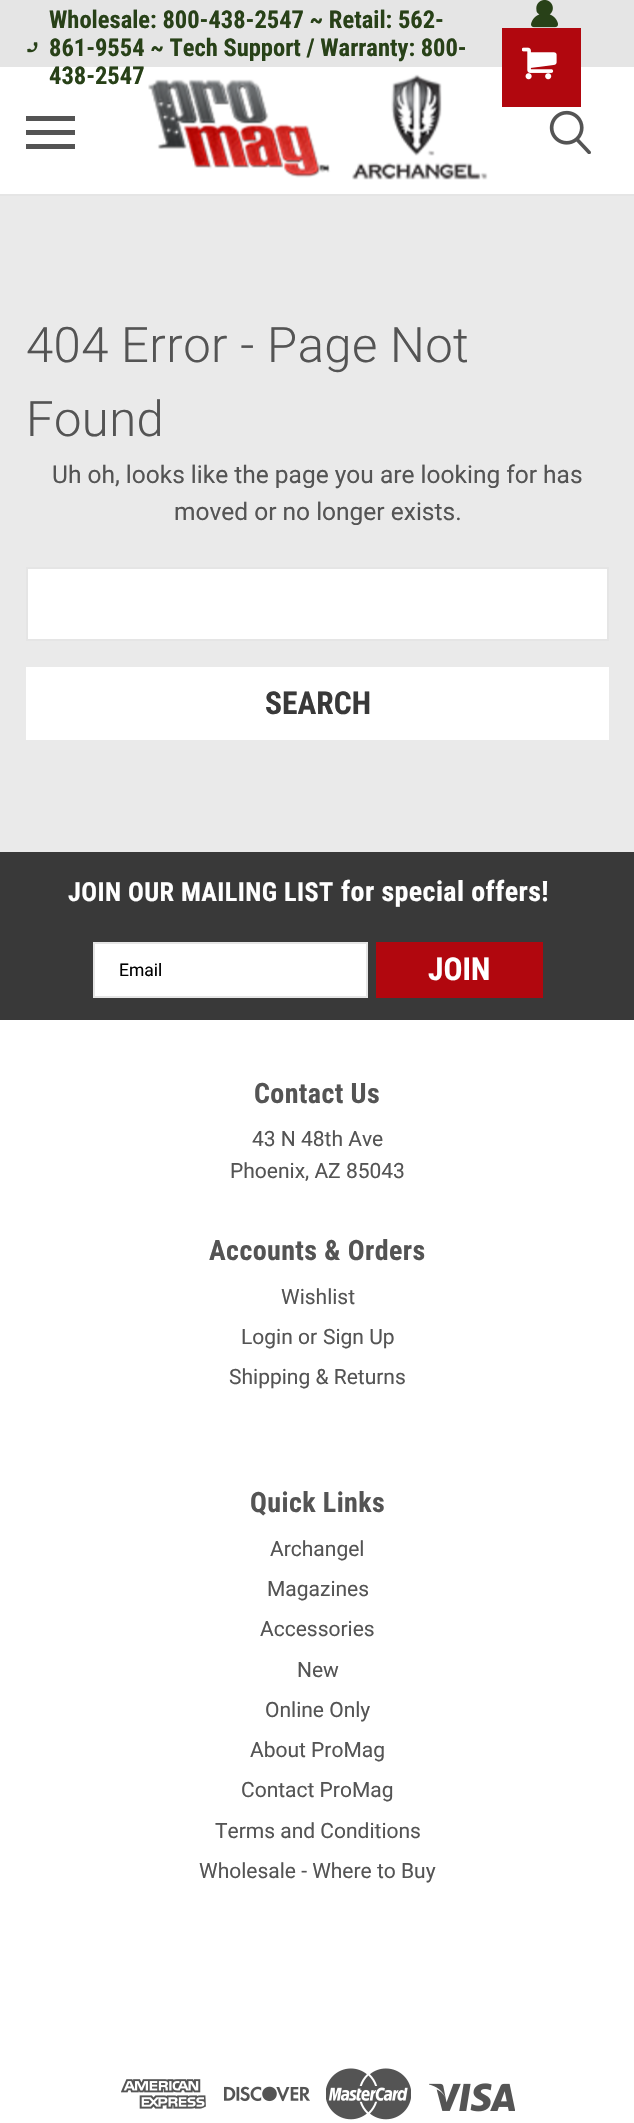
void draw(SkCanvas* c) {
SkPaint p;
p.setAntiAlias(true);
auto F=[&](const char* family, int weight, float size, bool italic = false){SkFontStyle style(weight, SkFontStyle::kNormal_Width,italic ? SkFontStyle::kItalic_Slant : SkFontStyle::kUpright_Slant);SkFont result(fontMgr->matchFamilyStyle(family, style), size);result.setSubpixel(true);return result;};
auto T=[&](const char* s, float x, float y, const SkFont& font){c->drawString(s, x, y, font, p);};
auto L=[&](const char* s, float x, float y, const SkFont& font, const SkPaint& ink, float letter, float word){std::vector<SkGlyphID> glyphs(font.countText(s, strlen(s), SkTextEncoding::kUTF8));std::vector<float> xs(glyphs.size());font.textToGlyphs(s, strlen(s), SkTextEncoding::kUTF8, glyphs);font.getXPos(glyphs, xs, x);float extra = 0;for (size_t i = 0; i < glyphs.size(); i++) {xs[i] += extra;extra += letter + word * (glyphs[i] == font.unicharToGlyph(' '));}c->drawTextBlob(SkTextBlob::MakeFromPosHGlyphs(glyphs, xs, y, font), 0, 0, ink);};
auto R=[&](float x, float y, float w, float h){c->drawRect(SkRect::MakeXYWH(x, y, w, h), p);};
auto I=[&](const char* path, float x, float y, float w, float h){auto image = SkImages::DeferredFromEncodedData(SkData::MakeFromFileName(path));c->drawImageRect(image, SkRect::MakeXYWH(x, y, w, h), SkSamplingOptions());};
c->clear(0xffeaeaea);
p.setColor(0xffe5e5e5);
R(0,194,634,2);
R(0,0,634,67);
auto f1 = F("Roboto Condensed",700,24.5);
p.setColor(0xff284118);
T("Wholesale: 800-438-2547 ~ Retail: 562-",49,28,f1);
I("1.png",27,42,11,11);
T("861-9554 ~ Tech Support / Warranty: 800-",49,56,f1);
p.setColor(0xffffffff);
R(0,67,634,127);
p.setColor(0xff284118);
T("438-2547",49,84,f1);
I("2.png",531,0,27,28);
p.setColor(0xffb1070e);
R(502,28,79,79);
I("3.png",522,47,35,33);
p.setColor(0xff545454);
R(26,130,49,5);
R(26,116,49,5);
R(26,144,49,5);
I("4.png",148,74,340,106);
I("5.png",549,110,42,44);
auto f2 = F("Roboto",300,49);
L("404 Error - Page Not",26,362,f2,p,.4,0);
L("Found",26,436,f2,p,.4,0);
auto f3 = F("Roboto",400,24.5);
T("Uh oh, looks like the page you are looking for has",52,483,f3);
T("moved or no longer exists.",174,520,f3);
p.setColor(0xffffffff);
c->drawRect(SkRect::MakeXYWH(27,568,581,72),p);
p.setStroke(true);
p.setStrokeWidth(2);
p.setColor(0xffe5e5e5);
c->drawRect(SkRect::MakeXYWH(27,568,581,72),p);
p.setStroke(false);
p.setColor(0xffffffff);
R(26,667,583,73);
auto f4 = F("Roboto Condensed",700,31.5);
p.setColor(0xff393939);
T("SEARCH",265,714,f4);
p.setColor(0xffffffff);
R(0,1020,634,1103);
p.setColor(0xff393939);
R(0,852,634,168);
auto f5 = F("Roboto Condensed",700,26.25);
p.setColor(0xffffffff);
L("JOIN OUR MAILING LIST",68,901,f5,p,.4,0);
auto f6 = F("Roboto Condensed",700,28);
L("for special offers!",341,901,f6,p,.4,0);
c->drawRect(SkRect::MakeXYWH(94,943,273,54),p);
p.setStroke(true);
p.setColor(0xffe5e5e5);
c->drawRect(SkRect::MakeXYWH(94,943,273,54),p);
auto f7 = F("Roboto",400,17.5);
p.setStroke(false);
p.setColor(0xff000000);
T("Email",119,976,f7);
p.setColor(0xffb1070e);
R(376,942,167,56);
p.setColor(0xffffffff);
T("JOIN",428,980,f4);
p.setColor(0xff545454);
L("Contact Us",254,1103,f6,p,.4,0);
auto f8 = F("Roboto",400,21);
T("43 N 48th Ave",252,1146,f8);
T("Phoenix, AZ 85043",230,1178,f8);
L("Accounts & Orders",209,1260,f6,p,.4,0);
T("Wishlist",281,1304,f8);
T("Login or",241,1344,f8);
T("Sign Up",323,1344,f8);
T("Shipping & Returns",229,1384,f8);
L("Quick Links",250,1512,f6,p,.4,0);
T("Archangel",270,1556,f8);
T("Magazines",267,1596,f8);
T("Accessories",260,1636,f8);
T("New",297,1677,f8);
T("Online Only",265,1717,f8);
T("About ProMag",250,1757,f8);
T("Contact ProMag",241,1797,f8);
T("Terms and Conditions",215,1838,f8);
T("Wholesale - Where to Buy",199,1878,f8);
I("6.png",121,2079,85,30);
I("7.png",224,2086,86,16);
I("8.png",326,2068,85,52);
I("9.png",429,2083,86,29);
}
